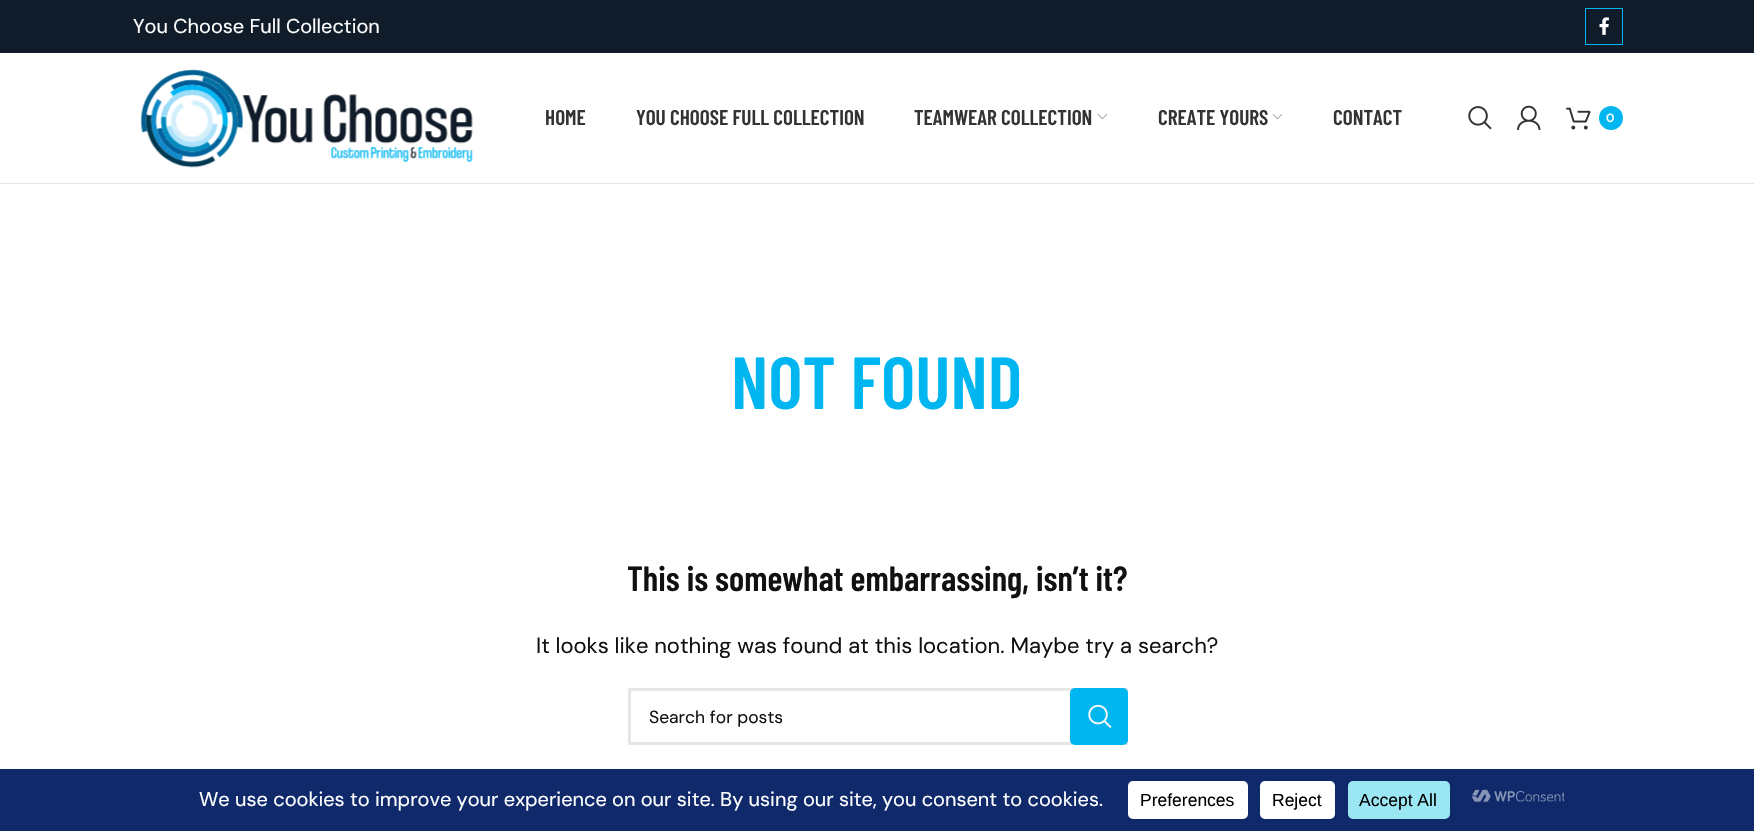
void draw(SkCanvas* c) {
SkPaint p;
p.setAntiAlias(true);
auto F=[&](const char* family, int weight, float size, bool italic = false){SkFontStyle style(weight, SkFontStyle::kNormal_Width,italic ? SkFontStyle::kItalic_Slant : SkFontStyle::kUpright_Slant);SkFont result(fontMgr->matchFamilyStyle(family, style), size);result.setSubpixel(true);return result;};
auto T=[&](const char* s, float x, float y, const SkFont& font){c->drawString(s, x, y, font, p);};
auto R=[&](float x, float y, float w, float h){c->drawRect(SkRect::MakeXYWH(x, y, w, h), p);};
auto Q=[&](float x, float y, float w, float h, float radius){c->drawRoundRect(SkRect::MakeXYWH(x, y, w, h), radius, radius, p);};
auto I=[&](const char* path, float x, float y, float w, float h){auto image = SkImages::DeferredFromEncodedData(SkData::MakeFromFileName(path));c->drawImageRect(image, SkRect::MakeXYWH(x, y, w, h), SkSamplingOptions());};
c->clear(0xffffffff);
p.setColor(0xff101c2a);
R(0,0,1754,53);
auto f1 = F("DM Sans",400,20);
p.setColor(0xffffffff);
T("You Choose Full Collection",133,33,f1);
p.setStroke(true);
p.setStrokeWidth(1);
p.setColor(0xff00b6f1);
c->drawRect(SkRect::MakeXYWH(1585.5,8.5,37,36),p);
I("1.png",1599,17,10,18);
p.setStroke(false);
p.setColor(0xffe6e6e6);
R(0,183,1754,1);
I("2.png",140,69,333,99);
auto f2 = F("Barlow Condensed",600,21.25);
p.setColor(0xff333333);
T("HOME",545,125,f2);
T("YOU CHOOSE FULL COLLECTION",636,125,f2);
T("TEAMWEAR COLLECTION",914,125,f2);
I("3.png",1097,114,11,6);
T("CREATE YOURS",1158,125,f2);
I("3.png",1272,114,11,6);
T("CONTACT",1333,125,f2);
I("4.png",1468,106,24,24);
I("5.png",1517,105,24,25);
I("6.png",1566,107,25,23);
p.setColor(0xff00b6f1);
c->drawCircle(1611,118,12,p);
auto f3 = F("DM Sans",600,12);
p.setColor(0xffffffff);
T("0",1606,122,f3);
auto f4 = F("Barlow Condensed",600,73.5);
p.setColor(0xff00b6f1);
T("NOT FOUND",731,409,f4);
auto f5 = F("Barlow Condensed",600,35);
p.setColor(0xff111111);
T("This is somewhat embarrassing, isn’t it?",627,591,f5);
auto f6 = F("DM Sans",400,22);
T("It looks like nothing was found at this location. Maybe try a search?",536,653,f6);
p.setStroke(true);
p.setStrokeWidth(3);
p.setColor(0xffe6e6e6);
c->drawRect(SkRect::MakeXYWH(629.5,689.5,497,54),p);
auto f7 = F("DM Sans",400,17.5);
p.setStroke(false);
p.setColor(0xff111111);
T("Search for posts",649,723,f7);
p.setColor(0xff00b6f1);
Q(1070,688,58,57,5);
I("7.png",1088,704,24,25);
p.setColor(0xff0f296b);
R(0,769,1754,62);
p.setColor(0xffffffff);
T("We use cookies to improve your experience on our site. By using our site, you consent to cookies.",199,806,f1);
Q(1128,781,120,38,5);
auto f8 = F("Liberation Sans",400,17.5);
p.setColor(0xff000000);
T("Preferences",1140,806,f8);
p.setColor(0xffffffff);
Q(1260,781,75,38,5);
p.setColor(0xff000000);
T("Reject",1272,806,f8);
p.setColor(0xff9ae6f3);
Q(1348,781,102,38,5);
p.setColor(0xff000000);
T("Accept All",1359,806,f8);
I("8.png",1472,789,93,13);
}
